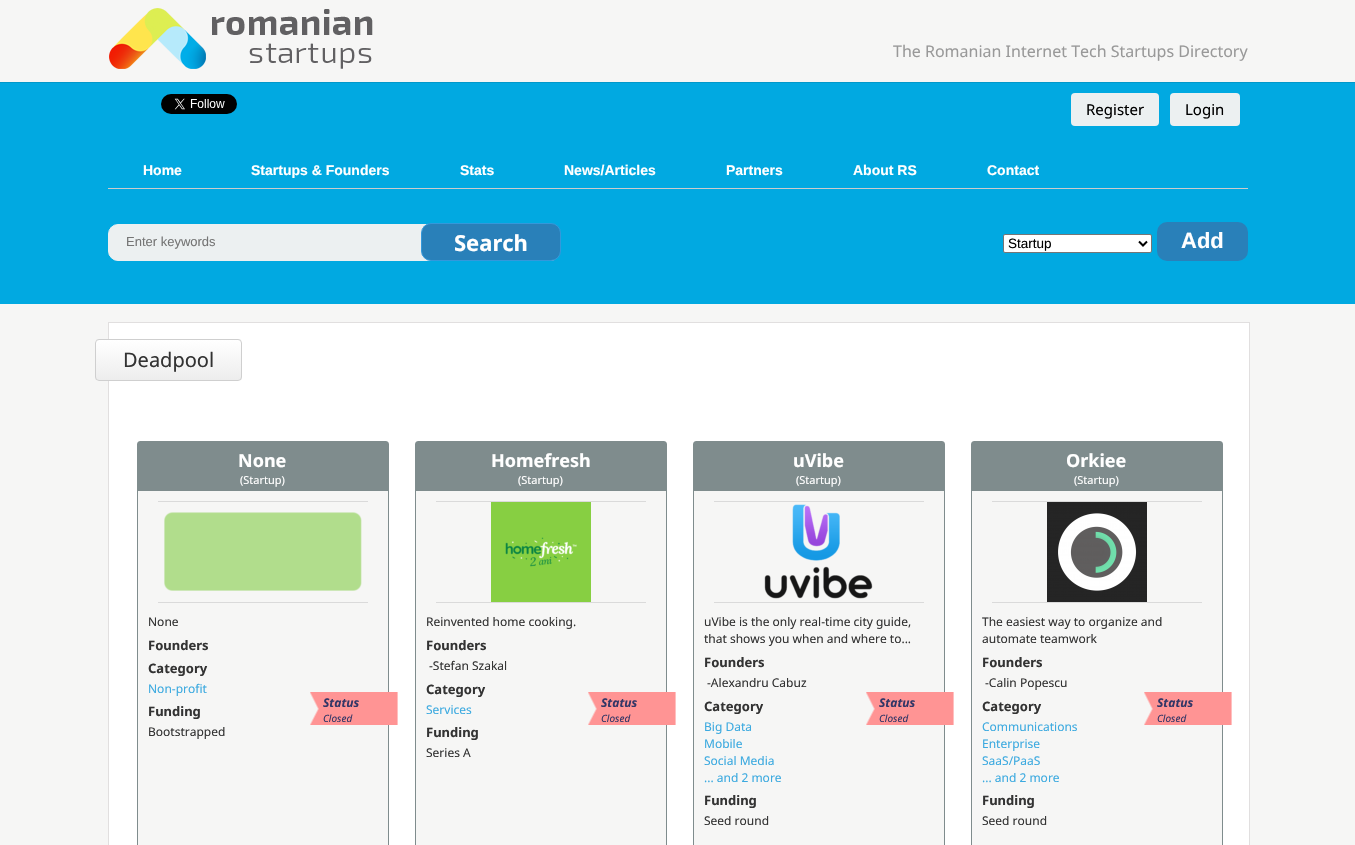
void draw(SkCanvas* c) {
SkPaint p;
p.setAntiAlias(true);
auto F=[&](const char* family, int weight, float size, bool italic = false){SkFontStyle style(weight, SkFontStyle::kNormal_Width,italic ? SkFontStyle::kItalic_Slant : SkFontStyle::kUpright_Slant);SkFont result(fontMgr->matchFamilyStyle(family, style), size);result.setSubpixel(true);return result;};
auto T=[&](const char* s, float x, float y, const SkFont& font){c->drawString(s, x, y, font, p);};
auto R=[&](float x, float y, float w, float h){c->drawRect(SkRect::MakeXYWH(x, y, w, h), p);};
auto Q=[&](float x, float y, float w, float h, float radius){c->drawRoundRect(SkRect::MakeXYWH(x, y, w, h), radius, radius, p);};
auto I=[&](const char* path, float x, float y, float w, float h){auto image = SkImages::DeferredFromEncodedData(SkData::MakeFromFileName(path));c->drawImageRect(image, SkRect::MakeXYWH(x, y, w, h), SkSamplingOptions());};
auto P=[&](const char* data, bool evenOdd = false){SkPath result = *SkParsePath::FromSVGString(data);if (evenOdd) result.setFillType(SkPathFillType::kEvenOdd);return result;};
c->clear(0xfff6f6f5);
I("1.png",109,8,264,61);
auto f1 = F("Noto Sans",400,16);
p.setColor(0xff999999);
T("The Romanian Internet Tech Startups Directory",893,57,f1);
p.setColor(0xff01a9e1);
R(0,83,1355,221);
p.setColor(0xff0198ca);
R(0,82,1355,1);
I("2.png",161,94,76,20);
p.setColor(0xffecf0f1);
Q(1071,93,88,33,4);
auto f2 = F("Noto Sans",400,15);
p.setColor(0xff000000);
T("Register",1086,115,f2);
p.setColor(0xffecf0f1);
Q(1170,93,70,33,4);
p.setColor(0xff000000);
T("Login",1185,115,f2);
p.setColor(0xffcccccc);
R(108,188,1140,1);
auto f3 = F("Liberation Sans",700,14);
p.setColor(0xffffffff);
T("Home",143,175,f3);
T("Startups & Founders",251,175,f3);
T("Stats",460,175,f3);
T("News/Articles",564,175,f3);
T("Partners",726,175,f3);
T("About RS",853,175,f3);
T("Contact",987,175,f3);
p.setColor(0xffecf0f1);
c->drawRoundRect(SkRect::MakeXYWH(108.5,224.5,451,36),9.5,9.5,p);
p.setStroke(true);
p.setStrokeWidth(1);
c->drawRoundRect(SkRect::MakeXYWH(108.5,224.5,451,36),9.5,9.5,p);
auto f4 = F("Liberation Sans",400,13);
p.setStroke(false);
p.setColor(0xff757575);
T("Enter keywords",126,246,f4);
p.setColor(0xff2980b9);
c->drawRoundRect(SkRect::MakeXYWH(421.5,223.5,139,37),9.5,9.5,p);
p.setStroke(true);
p.setColor(0xff3498db);
c->drawRoundRect(SkRect::MakeXYWH(421.5,223.5,139,37),9.5,9.5,p);
auto f5 = F("Noto Sans",700,22);
p.setStroke(false);
p.setColor(0xffffffff);
T("Search",454,251,f5);
c->drawRoundRect(SkRect::MakeXYWH(1003.5,234.5,148,18),1.5,1.5,p);
p.setStroke(true);
p.setColor(0xff767676);
c->drawRoundRect(SkRect::MakeXYWH(1003.5,234.5,148,18),1.5,1.5,p);
p.setStrokeWidth(2);
p.setColor(0xff000000);
c->drawPath(P("M1139 241.5l4 4l4-4"),p);
auto f6 = F("Liberation Sans",400,13.5);
p.setStroke(false);
T("Startup",1008,248,f6);
p.setColor(0xff2980b9);
Q(1157,222,91,39,10);
auto f7 = F("Liberation Sans",700,22);
p.setColor(0xffffffff);
T("Add",1181,248,f7);
c->drawRect(SkRect::MakeXYWH(108.5,322.5,1141,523),p);
p.setStroke(true);
p.setStrokeWidth(1);
p.setColor(0xffe1dfdf);
c->drawRect(SkRect::MakeXYWH(108.5,322.5,1141,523),p);
I("3.png",95,339,147,42);
p.setColor(0xffcfcfcf);
c->drawRoundRect(SkRect::MakeXYWH(95.5,339.5,146,41),3.5,3.5,p);
auto f8 = F("Noto Sans",400,20);
p.setStroke(false);
p.setColor(0xff333333);
T("Deadpool",123,367,f8);
p.setColor(0xfff6f6f5);
c->drawRoundRect(SkRect::MakeXYWH(137.5,441.5,251,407),2.5,2.5,p);
p.setStroke(true);
p.setColor(0xff7f8c8d);
c->drawRoundRect(SkRect::MakeXYWH(137.5,441.5,251,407),2.5,2.5,p);
p.setStroke(false);
R(138,442,250,49);
auto f9 = F("Noto Sans",700,18);
p.setColor(0xffffffff);
T("None",238,467,f9);
auto f10 = F("Noto Sans",400,11);
T("(Startup)",240,484,f10);
p.setColor(0xffdadada);
R(158,501,210,1);
R(158,602,210,1);
I("4.png",164,512,198,79);
auto f11 = F("Noto Sans",400,12);
p.setColor(0xff333333);
T("None",148,626,f11);
auto f12 = F("Noto Sans",700,13);
T("Founders",148,650,f12);
T("Category",148,673,f12);
p.setColor(0xff3caae0);
T("Non-profit",148,693,f11);
p.setColor(0xff333333);
T("Funding",148,716,f12);
T("Bootstrapped",148,736,f11);
I("5.png",310,692,88,33);
auto f13 = F("Noto Sans",700,12,true);
p.setColor(0xff333666);
T("Status",323,707,f13);
auto f14 = F("Noto Sans",400,10,true);
T("Closed",323,722,f14);
p.setColor(0xfff6f6f5);
c->drawRoundRect(SkRect::MakeXYWH(415.5,441.5,251,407),2.5,2.5,p);
p.setStroke(true);
p.setColor(0xff7f8c8d);
c->drawRoundRect(SkRect::MakeXYWH(415.5,441.5,251,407),2.5,2.5,p);
p.setStroke(false);
R(416,442,250,49);
p.setColor(0xffffffff);
T("Homefresh",491,467,f9);
T("(Startup)",518,484,f10);
p.setColor(0xffdadada);
R(436,501,210,1);
R(436,602,210,1);
I("6.png",491,502,100,100);
p.setColor(0xff333333);
T("Reinvented home cooking.",426,626,f11);
T("Founders",426,650,f12);
T("-Stefan Szakal",429,670,f11);
T("Category",426,694,f12);
p.setColor(0xff3caae0);
T("Services",426,714,f11);
I("5.png",588,692,88,33);
p.setColor(0xff333666);
T("Status",601,707,f13);
T("Closed",601,722,f14);
p.setColor(0xff333333);
T("Funding",426,737,f12);
T("Series A",426,757,f11);
p.setColor(0xfff6f6f5);
c->drawRoundRect(SkRect::MakeXYWH(693.5,441.5,251,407),2.5,2.5,p);
p.setStroke(true);
p.setColor(0xff7f8c8d);
c->drawRoundRect(SkRect::MakeXYWH(693.5,441.5,251,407),2.5,2.5,p);
p.setStroke(false);
R(694,442,250,49);
p.setColor(0xffffffff);
T("uVibe",793,467,f9);
T("(Startup)",796,484,f10);
p.setColor(0xffdadada);
R(714,501,210,1);
R(714,602,210,1);
I("7.png",764,504,109,95);
p.setColor(0xff333333);
T("uVibe is the only real-time city guide,",704,626,f11);
T("that shows you when and where to...",704,643,f11);
T("Founders",704,667,f12);
T("-Alexandru Cabuz",707,687,f11);
T("Category",704,711,f12);
p.setColor(0xff3caae0);
T("Big Data",704,731,f11);
T("Mobile",704,748,f11);
T("Social Media",704,765,f11);
T("... and 2 more",704,782,f11);
I("5.png",866,692,88,33);
p.setColor(0xff333666);
T("Status",879,707,f13);
T("Closed",879,722,f14);
p.setColor(0xff333333);
T("Funding",704,805,f12);
T("Seed round",704,825,f11);
p.setColor(0xfff6f6f5);
c->drawRoundRect(SkRect::MakeXYWH(971.5,441.5,251,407),2.5,2.5,p);
p.setStroke(true);
p.setColor(0xff7f8c8d);
c->drawRoundRect(SkRect::MakeXYWH(971.5,441.5,251,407),2.5,2.5,p);
p.setStroke(false);
R(972,442,250,49);
p.setColor(0xffffffff);
T("Orkiee",1066,467,f9);
T("(Startup)",1074,484,f10);
p.setColor(0xffdadada);
R(992,501,210,1);
R(992,602,210,1);
I("8.png",1047,502,100,100);
p.setColor(0xff333333);
T("The easiest way to organize and",982,626,f11);
T("automate teamwork",982,643,f11);
T("Founders",982,667,f12);
T("-Calin Popescu",985,687,f11);
T("Category",982,711,f12);
p.setColor(0xff3caae0);
T("Communications",982,731,f11);
T("Enterprise",982,748,f11);
T("SaaS/PaaS",982,765,f11);
T("... and 2 more",982,782,f11);
I("5.png",1144,692,88,33);
p.setColor(0xff333666);
T("Status",1157,707,f13);
T("Closed",1157,722,f14);
p.setColor(0xff333333);
T("Funding",982,805,f12);
T("Seed round",982,825,f11);
}
